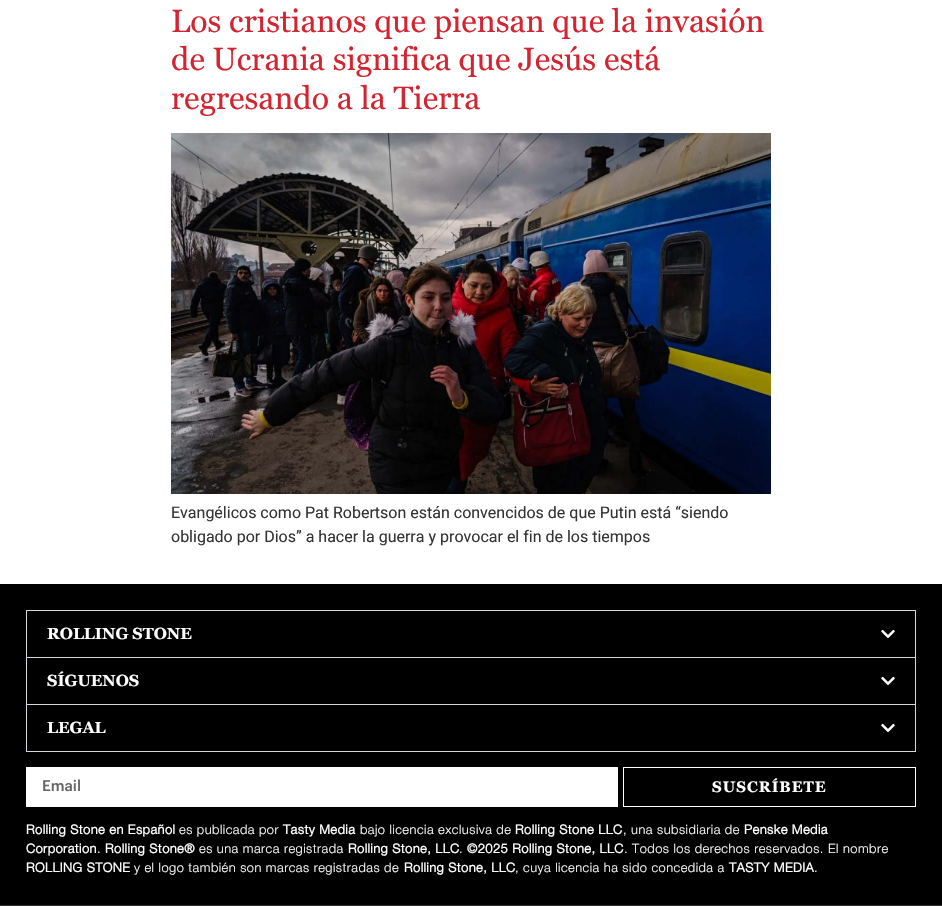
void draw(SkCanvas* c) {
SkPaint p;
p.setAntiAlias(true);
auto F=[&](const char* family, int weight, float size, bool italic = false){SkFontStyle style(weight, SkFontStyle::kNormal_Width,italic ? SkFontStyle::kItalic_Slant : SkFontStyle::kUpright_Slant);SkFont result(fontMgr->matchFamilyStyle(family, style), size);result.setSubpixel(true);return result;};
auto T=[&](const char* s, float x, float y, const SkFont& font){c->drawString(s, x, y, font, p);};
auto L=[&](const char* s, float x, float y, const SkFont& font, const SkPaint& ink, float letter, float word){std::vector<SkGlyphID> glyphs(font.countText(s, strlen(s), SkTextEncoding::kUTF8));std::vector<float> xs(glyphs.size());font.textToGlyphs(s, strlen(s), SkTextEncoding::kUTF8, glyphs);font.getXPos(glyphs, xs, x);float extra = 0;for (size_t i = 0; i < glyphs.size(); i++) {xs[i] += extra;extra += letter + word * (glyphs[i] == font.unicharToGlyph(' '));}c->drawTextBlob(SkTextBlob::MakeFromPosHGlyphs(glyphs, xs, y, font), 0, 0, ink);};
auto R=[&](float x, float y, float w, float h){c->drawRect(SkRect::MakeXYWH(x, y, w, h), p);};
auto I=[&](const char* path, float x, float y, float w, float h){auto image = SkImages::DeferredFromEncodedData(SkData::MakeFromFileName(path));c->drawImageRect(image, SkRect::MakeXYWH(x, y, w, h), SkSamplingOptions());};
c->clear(0xffffffff);
auto f1 = F("Georgia",400,32);
p.setColor(0xffd32531);
T("Los cristianos que piensan que la invasión",171,32,f1);
T("de Ucrania significa que Jesús está",171,70,f1);
T("regresando a la Tierra",171,109,f1);
I("1.png",171,133,600,361);
auto f2 = F("Roboto",400,16);
p.setColor(0xff333333);
T("Evangélicos como Pat Robertson están convencidos de que Putin está “siendo",171,518,f2);
T("obligado por Dios” a hacer la guerra y provocar el fin de los tiempos",171,542,f2);
p.setColor(0xff000000);
R(0,584,942,321);
p.setColor(0xff333333);
R(0,905,942,1);
p.setStroke(true);
p.setStrokeWidth(1);
p.setColor(0xffd5d8dc);
c->drawRect(SkRect::MakeXYWH(26.5,610.5,889,47),p);
auto f3 = F("Georgia",700,16);
p.setStroke(false);
p.setColor(0xffffffff);
T("ROLLING STONE",47,639,f3);
I("2.png",881,629,14,10);
p.setColor(0xffd5d8dc);
R(915,658,1,94);
R(26,704,890,1);
R(26,658,1,47);
p.setColor(0xffffffff);
T("SÍGUENOS",47,686,f3);
I("2.png",881,676,14,10);
p.setColor(0xffd5d8dc);
R(26,751,890,1);
R(26,705,1,47);
p.setColor(0xffffffff);
T("LEGAL",47,733,f3);
I("2.png",881,723,14,10);
R(26,767,592,40);
auto f4 = F("Graphik",500,15);
p.setColor(0xff666666);
T("Email",42,791,f4);
p.setStroke(true);
p.setColor(0xffffffff);
c->drawRect(SkRect::MakeXYWH(623.5,767.5,292,39),p);
auto f5 = F("Georgia",700,15);
p.setStroke(false);
L("SUSCRÍBETE",712,792,f5,p,1,0);
auto f6 = F("Helvetica Neue",700,12.8);
L("Rolling Stone en Español",26,834,f6,p,.5,0);
auto f7 = F("Helvetica Neue",300,12.8);
L("es publicada por",179,834,f7,p,.5,0);
L("Tasty Media",283,834,f6,p,.5,0);
L("bajo licencia exclusiva de",360,834,f7,p,.5,0);
L("Rolling Stone LLC",515,834,f6,p,.5,0);
L(", una subsidiaria de",623,834,f7,p,.5,0);
L("Penske Media",744,834,f6,p,.5,0);
L("Corporation",26,853,f6,p,.5,0);
L(".",97,853,f7,p,.5,0);
L("Rolling Stone®",105,853,f6,p,.5,0);
L("es una marca registrada",199,853,f7,p,.5,0);
L("Rolling Stone, LLC",348,853,f6,p,.5,0);
L(".",459,853,f7,p,.5,0);
L("©2025 Rolling Stone, LLC",467,853,f6,p,.5,0);
L(". Todos los derechos reservados. El nombre",624,853,f7,p,.5,0);
L("ROLLING STONE",26,872,f6,p,.5,0);
L("y el logo también son marcas registradas de",134,872,f7,p,.5,0);
L("Rolling Stone, LLC",404,872,f6,p,.5,0);
L(", cuya licencia ha sido concedida a",515,872,f7,p,.5,0);
L("TASTY MEDIA",729,872,f6,p,.5,0);
L(".",814,872,f7,p,.5,0);
}
